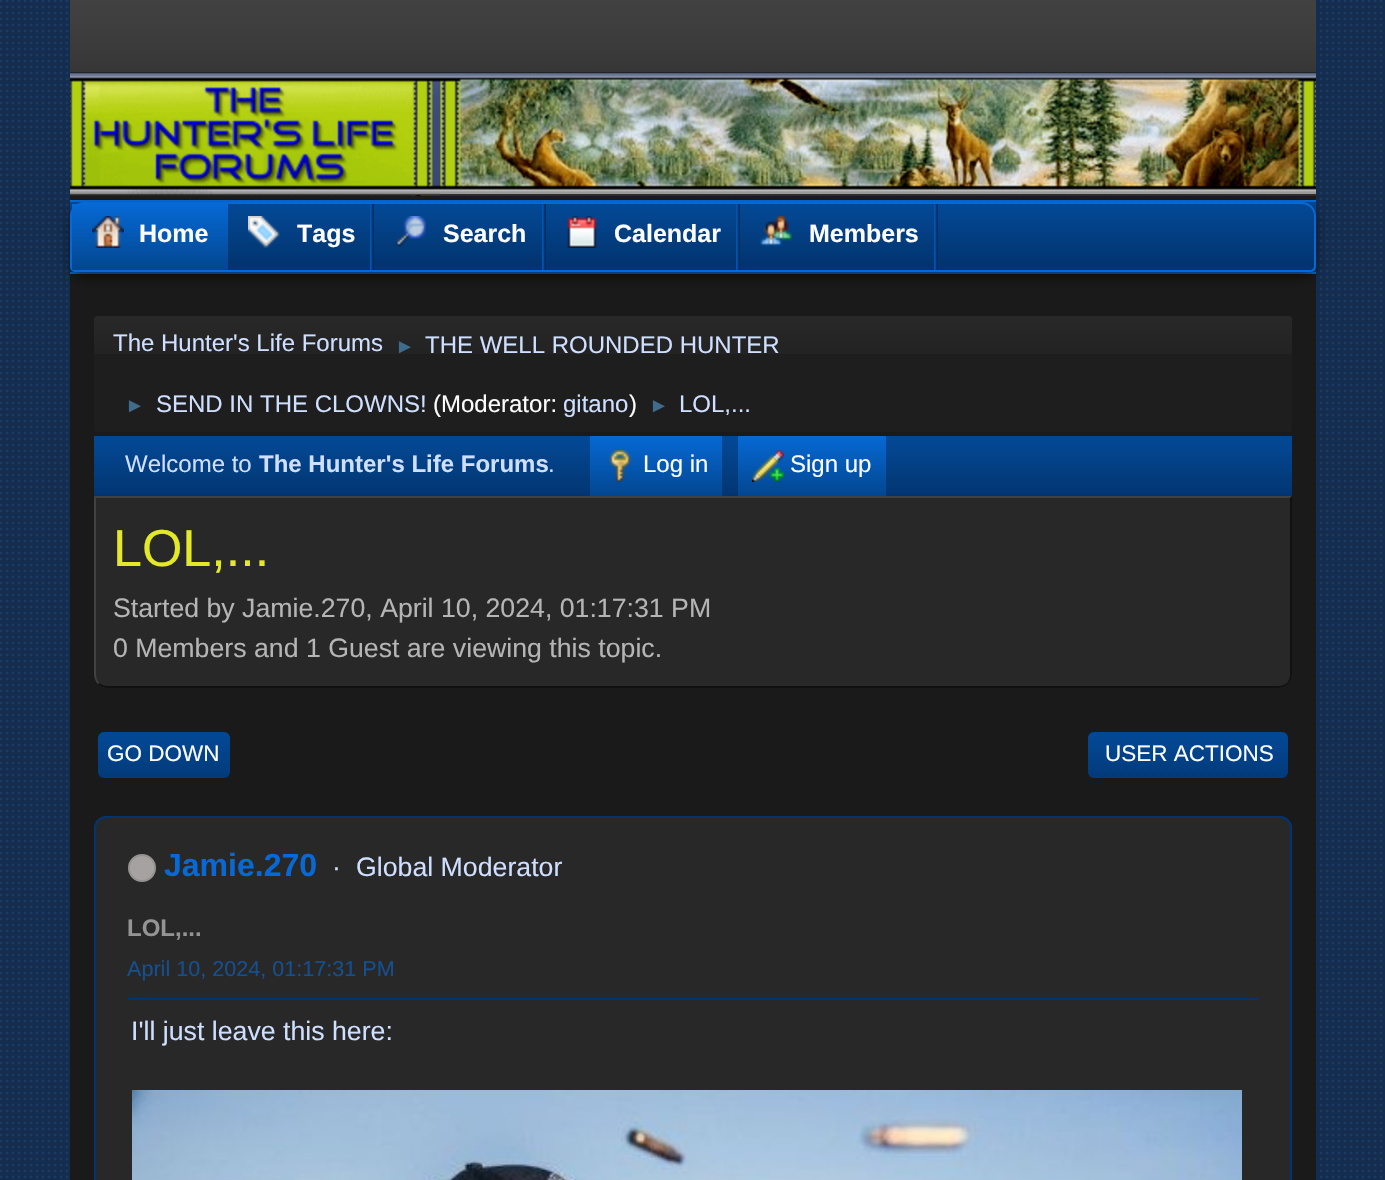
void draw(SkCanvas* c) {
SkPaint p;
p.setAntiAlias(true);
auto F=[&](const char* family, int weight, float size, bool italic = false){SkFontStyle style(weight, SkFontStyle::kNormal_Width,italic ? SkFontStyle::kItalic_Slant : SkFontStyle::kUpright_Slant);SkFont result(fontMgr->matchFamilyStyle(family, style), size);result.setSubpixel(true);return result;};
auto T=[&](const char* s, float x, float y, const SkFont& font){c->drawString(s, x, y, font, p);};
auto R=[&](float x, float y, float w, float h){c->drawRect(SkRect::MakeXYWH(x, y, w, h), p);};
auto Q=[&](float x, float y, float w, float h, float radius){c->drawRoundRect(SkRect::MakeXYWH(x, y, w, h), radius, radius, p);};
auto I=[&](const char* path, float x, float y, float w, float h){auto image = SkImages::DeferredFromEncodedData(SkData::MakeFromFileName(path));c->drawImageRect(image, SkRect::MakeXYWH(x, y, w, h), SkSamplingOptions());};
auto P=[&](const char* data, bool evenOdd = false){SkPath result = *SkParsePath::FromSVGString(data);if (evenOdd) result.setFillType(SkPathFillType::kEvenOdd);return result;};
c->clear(0xffffffff);
I("1.png",0,0,1385,1180);
p.setColor(0xff1a1a1a);
R(70,274,1246,906);
p.setColor(0xff1c1b1b);
R(70,196,1246,4);
I("2.png",70,0,1246,72);
I("3.png",70,72,1246,124);
p.setColor(0xff023570);
R(70,260,1246,12);
I("4.png",70,202,1246,58);
p.setColor(0xff0669d5);
R(70,200,1246,2);
R(70,272,1246,2);
c->save();
c->clipPath(P("M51 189h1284v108h-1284zm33 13h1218c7.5 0 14 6.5 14 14v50c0 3.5-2.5 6-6 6h-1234c-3.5 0-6-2.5-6-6v-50c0-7.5 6.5-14 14-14z",true),true);
p.setColor(0x80000000);
p.setMaskFilter(SkMaskFilter::MakeBlur(kNormal_SkBlurStyle, 6));
c->drawRoundRect(SkRect::MakeXYWH(70,208,1246,70),14,14,p);
p.setMaskFilter(nullptr);
c->restore();
p.setStroke(true);
p.setStrokeWidth(2);
p.setColor(0xff0669d5);
c->drawPath(P("M84 203h1218c7 0 13 6 13 13v50c0 3-2 5-5 5h-1234c-3 0-5-2-5-5v-50c0-7 6-13 13-13z"),p);
p.setStroke(false);
{
const SkColor colors[] = {0xff0669d5,0xff03468f};
const float stops[] = {0,1};
const SkPoint ends[] = {{150,204}, {150,270}};
p.setShader(SkGradientShader::MakeLinear(ends, colors, stops, 2, SkTileMode::kClamp));
p.setAlpha(255);
}
R(72,204,156,66);
I("5.png",92,216,32,32);
auto f1 = F("Liberation Sans",700,25);
p.setShader(nullptr);
p.setColor(0xfffcfcfc);
T("Home",139,242,f1);
I("6.png",370,204,4,66);
I("7.png",248,216,32,32);
T("Tags",297,242,f1);
I("6.png",542,204,4,66);
I("8.png",395,216,31,31);
T("Search",443,242,f1);
I("6.png",736,204,4,66);
I("9.png",567,216,30,32);
T("Calendar",614,242,f1);
I("6.png",934,204,4,66);
I("10.png",760,216,32,31);
T("Members",809,242,f1);
p.setColor(0xff1f1e1e);
Q(94,316,1198,116,4);
I("11.png",94,316,1198,38);
auto f2 = F("Liberation Sans",400,24);
p.setColor(0xffcedfff);
T("The Hunter's Life Forums",113,351,f2);
auto f3 = F("Liberation Sans",400,20);
p.setColor(0xff3f6b8c);
T("►",395,353,f3);
p.setColor(0xffcedfff);
T("THE WELL ROUNDED HUNTER",425,353,f2);
p.setColor(0xff3f6b8c);
T("►",125,412,f3);
p.setColor(0xffcedfff);
T("SEND IN THE CLOWNS!",156,412,f2);
p.setColor(0xfffcfcfc);
T("(Moderator:",433,412,f2);
p.setColor(0xffcedfff);
T("gitano",563,412,f2);
p.setColor(0xfffcfcfc);
T(")",629,412,f2);
p.setColor(0xff3f6b8c);
T("►",649,412,f3);
p.setColor(0xffcedfff);
T("LOL,...",679,412,f2);
p.setColor(0xff023570);
R(94,494,1198,2);
I("12.png",94,436,1198,58);
p.setColor(0xffcedfff);
T("Welcome to",125,472,f2);
auto f4 = F("Liberation Sans",700,24);
T("The Hunter's Life Forums",259,472,f4);
T(".",548,472,f2);
{
const SkColor colors[] = {0xff0669d5,0xff03468f};
const float stops[] = {0,1};
const SkPoint ends[] = {{656,436}, {656,496}};
p.setShader(SkGradientShader::MakeLinear(ends, colors, stops, 2, SkTileMode::kClamp));
p.setAlpha(255);
}
R(590,436,132,60);
I("13.png",609,450,22,32);
p.setShader(nullptr);
p.setColor(0xfffcfcfc);
T("Log in",643,472,f2);
{
const SkColor colors[] = {0xff0669d5,0xff03468f};
const float stops[] = {0,1};
const SkPoint ends[] = {{812,436}, {812,496}};
p.setShader(SkGradientShader::MakeLinear(ends, colors, stops, 2, SkTileMode::kClamp));
p.setAlpha(255);
}
R(738,436,148,60);
I("14.png",752,450,32,32);
p.setShader(nullptr);
p.setColor(0xfffcfcfc);
T("Sign up",790,472,f2);
p.setColor(0xff282828);
c->drawPath(P("M94 496h1198v178c0 7.5-6.5 14-14 14h-1170c-7.5 0-14-6.5-14-14z"),p);
p.setColor(0xff424141);
c->drawPath(P("M94 496l2 2h1194l2-2z"),p);
p.setColor(0xff111111);
c->drawPath(P("M1292 496l-2 2v176c0 4-1 6-3 9l1 1c2-2 4-6 4-10z"),p);
c->drawPath(P("M108 688h1170c4 0 8-2 10-4l-1-1c-3 2-5 3-9 3h-1170c-4 0-6-1-9-3l-1 1c2 2 6 4 10 4z"),p);
p.setColor(0xff424141);
c->drawPath(P("M96 498l-2-2v178c0 4 2 8 4 10l1-1c-2-3-3-5-3-9z"),p);
auto f5 = F("Liberation Sans",400,52);
p.setColor(0xffe3e926);
T("LOL,...",113,566,f5);
auto f6 = F("Liberation Sans",400,26.7);
p.setColor(0xffb5b5b5);
T("Started by Jamie.270, April 10, 2024, 01:17:31 PM",113,617,f6);
T("0 Members and 1 Guest are viewing this topic.",113,657,f6);
I("15.png",98,732,132,46);
auto f7 = F("Liberation Sans",400,22.5);
p.setColor(0xfffcfcfc);
T("GO DOWN",107,761,f7);
I("16.png",1088,732,200,46);
T("USER ACTIONS",1105,761,f7);
p.setColor(0xff282828);
c->drawRoundRect(SkRect::MakeXYWH(95,817,1196,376),11,11,p);
p.setStroke(true);
p.setColor(0xff023570);
c->drawRoundRect(SkRect::MakeXYWH(95,817,1196,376),11,11,p);
p.setStroke(false);
p.setColor(0xffa7a2a2);
c->drawCircle(142,868,13,p);
p.setStroke(true);
p.setColor(0xff969292);
c->drawCircle(142,868,13,p);
auto f8 = F("Liberation Sans",700,32);
p.setStroke(false);
p.setColor(0xff0669d5);
T("Jamie.270",164,876,f8);
p.setColor(0xffcedfff);
T("·",332,876,f6);
T("Global Moderator",356,876,f6);
p.setColor(0xff949494);
T("LOL,...",127,936,f4);
auto f9 = F("Liberation Sans",400,21.6);
p.setColor(0xff144f90);
T("April 10, 2024, 01:17:31 PM",127,976,f9);
p.setColor(0xff023570);
R(128,998,1130,2);
p.setColor(0xffcedfff);
T("I'll just leave this here:",131,1040,f6);
I("17.png",132,1090,1110,90);
}
